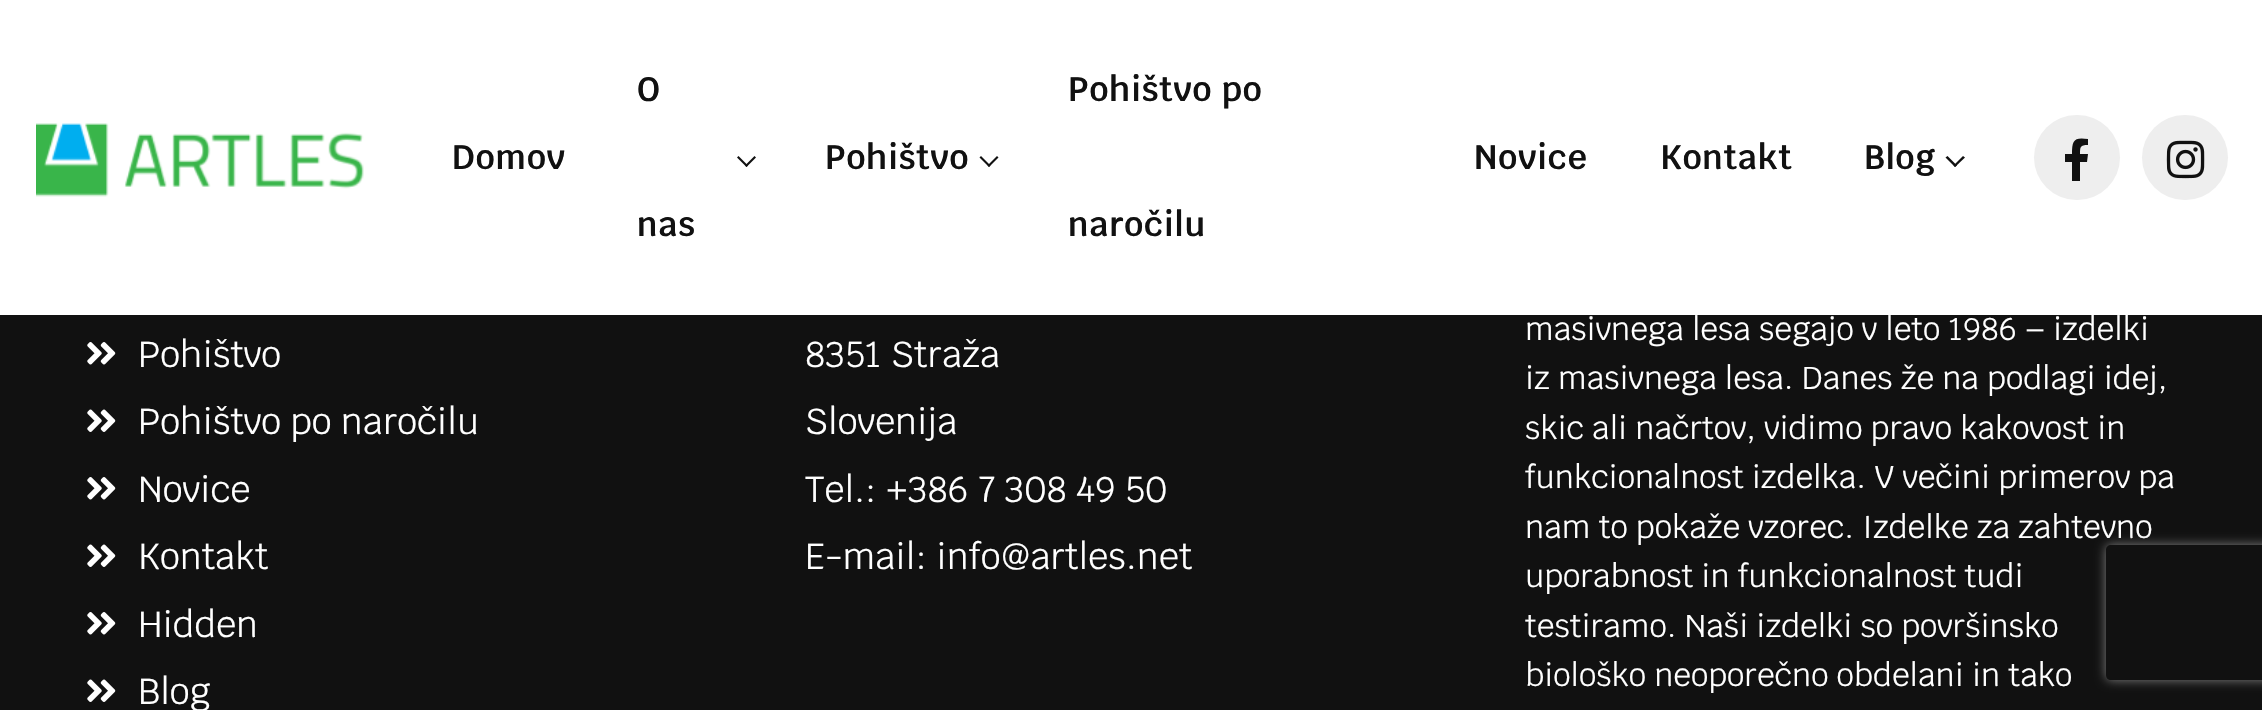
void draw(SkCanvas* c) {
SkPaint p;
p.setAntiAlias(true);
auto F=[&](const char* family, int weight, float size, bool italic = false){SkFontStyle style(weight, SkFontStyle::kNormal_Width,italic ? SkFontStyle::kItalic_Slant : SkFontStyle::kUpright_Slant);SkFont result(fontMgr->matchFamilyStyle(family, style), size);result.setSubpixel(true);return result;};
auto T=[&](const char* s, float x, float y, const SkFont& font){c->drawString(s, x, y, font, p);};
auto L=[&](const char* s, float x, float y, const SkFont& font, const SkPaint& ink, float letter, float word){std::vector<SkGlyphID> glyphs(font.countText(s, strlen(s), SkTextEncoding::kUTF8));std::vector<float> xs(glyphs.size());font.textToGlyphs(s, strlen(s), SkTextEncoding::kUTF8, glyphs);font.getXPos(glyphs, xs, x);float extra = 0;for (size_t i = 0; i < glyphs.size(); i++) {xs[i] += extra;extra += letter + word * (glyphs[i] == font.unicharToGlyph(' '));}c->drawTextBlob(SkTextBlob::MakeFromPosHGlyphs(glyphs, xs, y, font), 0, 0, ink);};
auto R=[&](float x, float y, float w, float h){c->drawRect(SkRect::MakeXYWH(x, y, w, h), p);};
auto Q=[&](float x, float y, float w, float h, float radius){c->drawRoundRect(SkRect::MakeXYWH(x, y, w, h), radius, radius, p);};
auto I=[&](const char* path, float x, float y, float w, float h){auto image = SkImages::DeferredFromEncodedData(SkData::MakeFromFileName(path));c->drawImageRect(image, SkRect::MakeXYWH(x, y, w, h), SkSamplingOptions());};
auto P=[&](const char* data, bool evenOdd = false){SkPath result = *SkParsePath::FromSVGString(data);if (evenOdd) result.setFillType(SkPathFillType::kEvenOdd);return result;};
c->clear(0xff111111);
p.setColor(0xffffffff);
R(0,0,2262,315);
I("1.png",36,123,328,74);
auto f1 = F("Krub",600,33.75);
p.setColor(0xff111111);
L("Domov",452,169,f1,p,.75,0);
L("O",637,101,f1,p,.75,0);
c->drawPath(P("M754.5 156l1.5 1.5l-9.5 9.5l-1.5-1.5z"),p);
c->drawPath(P("M738.5 156l9.5 9.5l-1.5 1.5l-9.5-9.5z"),p);
L("nas",637,236,f1,p,.75,0);
L("Pohištvo",825,169,f1,p,.75,0);
c->drawPath(P("M997 156l1.5 1.5l-9.5 9.5l-1.5-1.5z"),p);
c->drawPath(P("M981 156l9.5 9.5l-1.5 1.5l-9.5-9.5z"),p);
L("Pohištvo po",1068,101,f1,p,.75,0);
L("naročilu",1068,236,f1,p,.75,0);
L("Novice",1474,169,f1,p,.75,0);
L("Kontakt",1660,169,f1,p,.75,0);
L("Blog",1864,169,f1,p,.75,0);
c->drawPath(P("M1963 156l2 1.5l-10 9.5l-1.5-1.5z"),p);
c->drawPath(P("M1947.5 156l9.5 9.5l-2 1.5l-9.5-9.5z"),p);
p.setColor(0xffeeeeee);
Q(2034,115,86,85,42.5);
p.setColor(0xff111111);
c->drawPath(P("M2087 162h-7v19h-8v-19h-7v-8h7c0-14 2-17 16-15v6c-8 0-8 2-8 9h8z"),p);
p.setColor(0xffeeeeee);
Q(2142,115,86,85,42.5);
I("2.png",2166,140,39,39);
I("3.png",87,342,29,23);
auto f2 = F("Krub",400,36);
p.setColor(0xffffffff);
T("Pohištvo",138,367,f2);
I("4.png",87,409,29,23);
T("Pohištvo po naročilu",138,434,f2);
I("3.png",87,477,29,23);
T("Novice",138,502,f2);
I("4.png",87,544,29,23);
T("Kontakt",138,569,f2);
I("3.png",87,612,29,23);
T("Hidden",138,637,f2);
I("4.png",87,679,29,23);
T("Blog",138,704,f2);
T("8351 Straža",805,367,f2);
T("Slovenija",805,434,f2);
T("Tel.: +386 7 308 49 50",805,502,f2);
T("E-mail: info@artles.net",805,569,f2);
auto f3 = F("Krub",400,31.5);
T("masivnega lesa segajo v leto 1986 – izdelki",1525,340,f3);
T("iz masivnega lesa. Danes že na podlagi idej,",1525,389,f3);
T("skic ali načrtov, vidimo pravo kakovost in",1525,439,f3);
T("funkcionalnost izdelka. V večini primerov pa",1525,488,f3);
T("nam to pokaže vzorec. Izdelke za zahtevno",1525,538,f3);
T("uporabnost in funkcionalnost tudi",1525,587,f3);
T("testiramo. Naši izdelki so površinsko",1525,637,f3);
T("biološko neoporečno obdelani in tako",1525,686,f3);
c->save();
c->clipPath(P("M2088 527h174v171h-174zm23 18h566c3 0 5 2 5 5v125c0 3-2 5-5 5h-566c-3 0-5-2-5-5v-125c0-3 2-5 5-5z",true),true);
p.setColor(0xff808080);
p.setMaskFilter(SkMaskFilter::MakeBlur(kNormal_SkBlurStyle, 5.5));
c->drawRoundRect(SkRect::MakeXYWH(2106,545,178,135),5,5,p);
p.setMaskFilter(nullptr);
c->restore();
}
